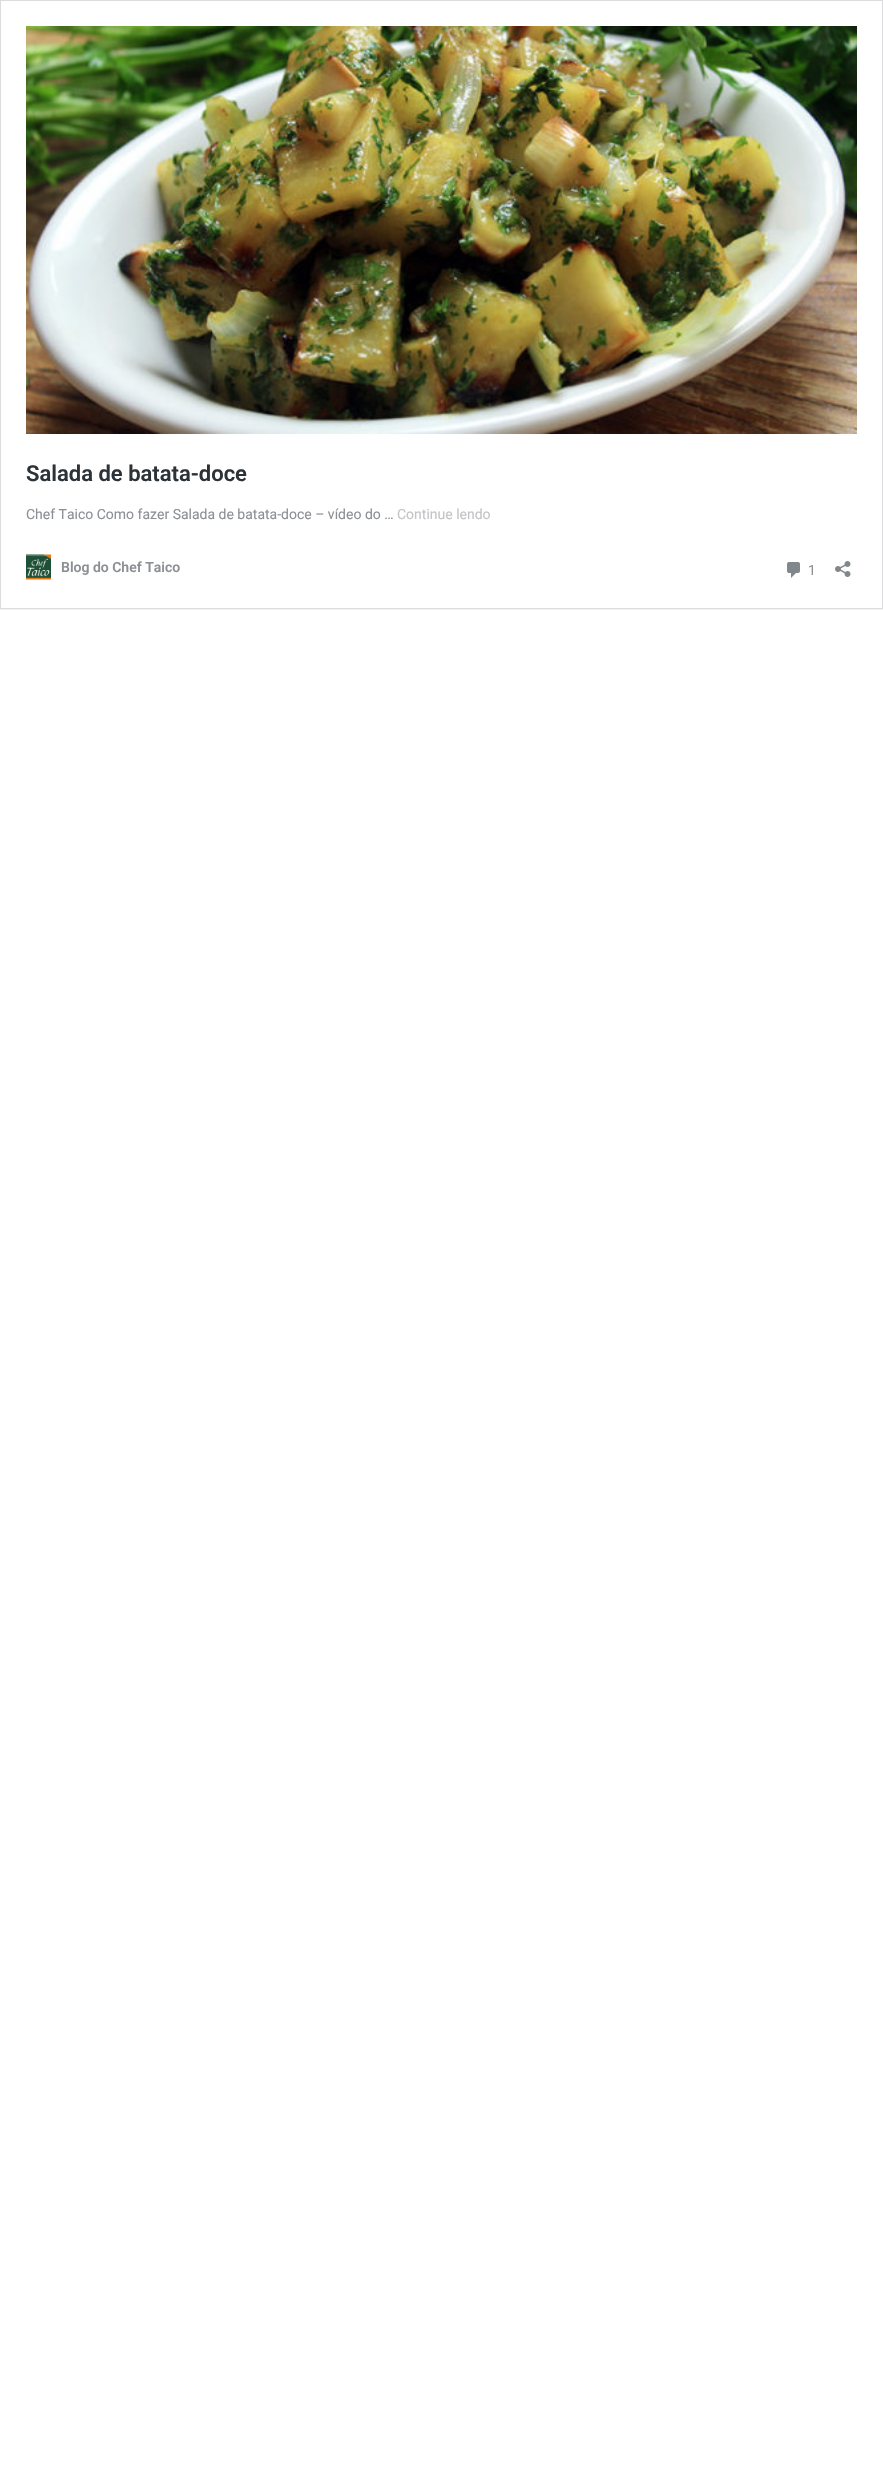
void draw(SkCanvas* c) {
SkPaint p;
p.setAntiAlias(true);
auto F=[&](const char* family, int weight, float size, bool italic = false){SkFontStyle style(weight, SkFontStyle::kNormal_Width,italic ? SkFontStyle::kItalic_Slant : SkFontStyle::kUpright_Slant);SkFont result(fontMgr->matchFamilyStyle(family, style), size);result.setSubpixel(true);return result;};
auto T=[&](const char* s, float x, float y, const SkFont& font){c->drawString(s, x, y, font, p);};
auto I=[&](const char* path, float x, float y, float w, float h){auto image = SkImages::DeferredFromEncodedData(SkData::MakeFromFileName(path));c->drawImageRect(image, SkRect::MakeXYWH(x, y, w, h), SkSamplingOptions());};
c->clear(0xffffffff);
c->save();
c->clipRect(SkRect::MakeXYWH(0,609,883,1));
p.setColor(0x0d000000);
p.setMaskFilter(SkMaskFilter::MakeBlur(kNormal_SkBlurStyle, .5));
c->drawRect(SkRect::MakeXYWH(0,1,883,609),p);
p.setMaskFilter(nullptr);
c->restore();
p.setStroke(true);
p.setStrokeWidth(1);
p.setColor(0xffdcdcde);
c->drawRect(SkRect::MakeXYWH(.5,.5,882,608),p);
I("1.png",26,26,831,408);
auto f1 = F("Roboto",600,22);
p.setStroke(false);
p.setColor(0xff2c3338);
T("Salada de batata-doce",26,481,f1);
auto f2 = F("Roboto",400,14);
p.setColor(0xff8c8f94);
T("Chef Taico Como fazer Salada de batata-doce – vídeo do …",26,519,f2);
p.setColor(0xffc3c4c7);
T("Continue lendo",397,519,f2);
I("2.png",26,554,25,26);
auto f3 = F("Roboto",600,14);
p.setColor(0xff8c8f94);
T("Blog do Chef Taico",61,572,f3);
I("3.png",787,562,13,16);
T("1",808,575,f2);
I("4.png",835,561,16,16);
}
